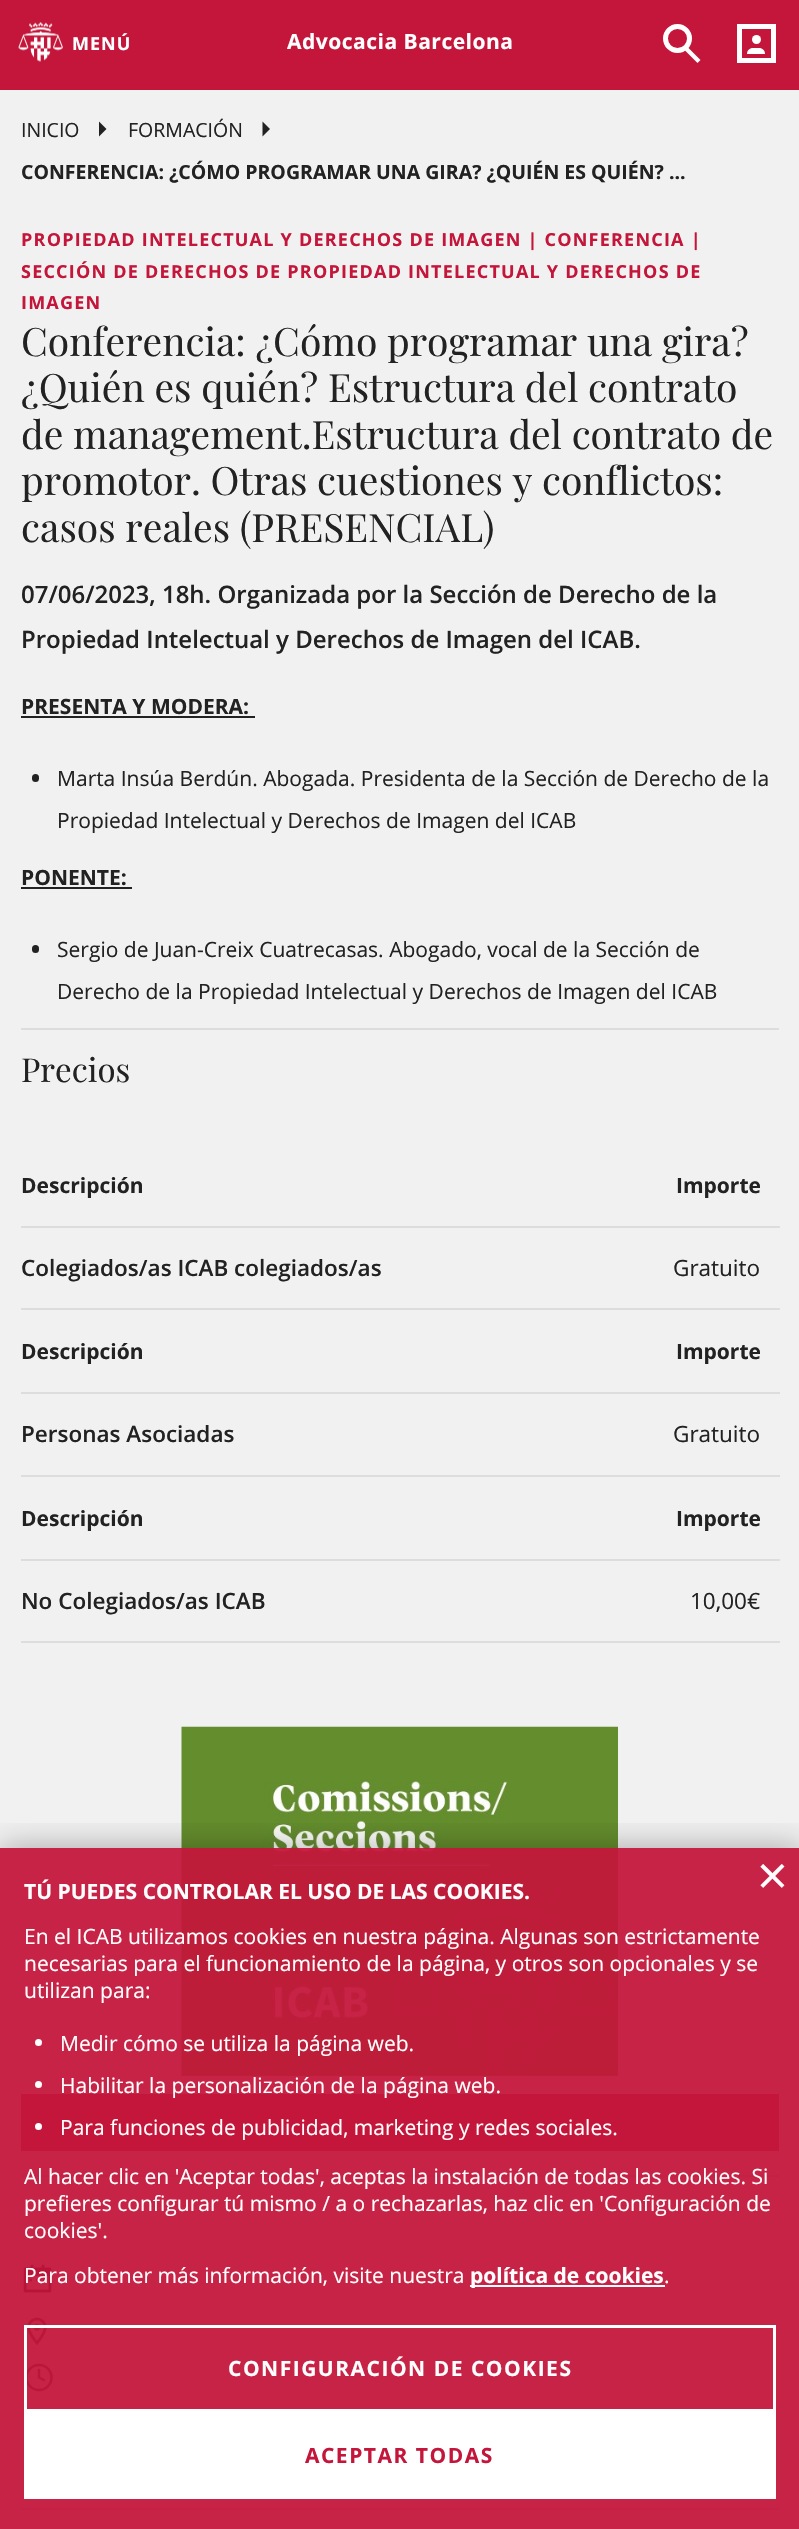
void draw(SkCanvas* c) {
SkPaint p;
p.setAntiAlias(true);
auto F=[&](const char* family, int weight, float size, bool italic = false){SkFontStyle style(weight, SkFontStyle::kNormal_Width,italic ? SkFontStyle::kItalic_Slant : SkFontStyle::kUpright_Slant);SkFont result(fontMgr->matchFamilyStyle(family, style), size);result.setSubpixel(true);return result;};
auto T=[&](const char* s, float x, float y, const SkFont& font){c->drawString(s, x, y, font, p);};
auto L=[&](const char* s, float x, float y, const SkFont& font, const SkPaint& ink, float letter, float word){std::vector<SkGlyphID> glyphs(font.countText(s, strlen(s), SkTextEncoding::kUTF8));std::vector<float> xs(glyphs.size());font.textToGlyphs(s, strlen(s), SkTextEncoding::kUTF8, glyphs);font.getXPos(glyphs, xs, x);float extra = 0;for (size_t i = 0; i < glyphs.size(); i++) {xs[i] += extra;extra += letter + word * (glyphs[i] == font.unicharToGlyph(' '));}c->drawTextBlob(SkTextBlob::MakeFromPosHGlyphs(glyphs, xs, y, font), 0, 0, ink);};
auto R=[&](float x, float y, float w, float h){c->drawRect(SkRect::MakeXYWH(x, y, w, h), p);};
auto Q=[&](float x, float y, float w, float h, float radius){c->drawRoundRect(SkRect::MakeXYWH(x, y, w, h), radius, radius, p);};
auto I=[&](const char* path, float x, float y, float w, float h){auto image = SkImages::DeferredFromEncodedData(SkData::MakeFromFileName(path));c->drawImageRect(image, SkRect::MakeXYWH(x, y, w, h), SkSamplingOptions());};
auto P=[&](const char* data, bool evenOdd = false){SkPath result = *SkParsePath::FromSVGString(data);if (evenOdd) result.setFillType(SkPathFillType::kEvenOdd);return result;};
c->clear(0xffc4153a);
I("1.png",18,22,45,40);
auto f1 = F("Open Sans",700,18);
p.setColor(0xffffffff);
L("MENÚ",72,50,f1,p,1,0);
auto f2 = F("Open Sans",700,21);
L("Advocacia Barcelona",287,49,f2,p,.5,0);
p.setStroke(true);
p.setStrokeWidth(5);
c->drawCircle(677.5,38.5,12,p);
p.setStroke(false);
c->drawPath(P("M687 46.5l13.5 13.5l-3 3l-13.5-13.5z"),p);
p.setStroke(true);
c->drawRect(SkRect::MakeXYWH(739.5,26.5,34,34),p);
p.setStroke(false);
c->drawCircle(756.5,39.5,4.5,p);
c->drawPath(P("M753 48h6c3.5 0 6 2.5 6 6h-18c0-3.5 2.5-6 6-6z"),p);
p.setColor(0xfff1f1f1);
R(0,90,799,2439);
auto f3 = F("Open Sans",400,19.5);
p.setColor(0xff222222);
T("INICIO",21,137,f3);
c->drawPath(P("M99 136.5v-15l7.5 7.5z"),p);
T("FORMACIÓN",128,137,f3);
c->drawPath(P("M262.5 136.5v-15l7.5 7.5z"),p);
auto f4 = F("Open Sans",700,19.5);
T("CONFERENCIA: ¿CÓMO PROGRAMAR UNA GIRA? ¿QUIÉN ES QUIÉN? ...",21,179,f4);
p.setColor(0xffc4153a);
L("PROPIEDAD INTELECTUAL Y DERECHOS DE IMAGEN | CONFERENCIA |",21,246,f1,p,1.22,0);
L("SECCIÓN DE DERECHOS DE PROPIEDAD INTELECTUAL Y DERECHOS DE",21,278,f1,p,1.22,0);
L("IMAGEN",21,309,f1,p,1.22,0);
auto f5 = F("Playfair Display",400,39);
p.setColor(0xff222222);
T("Conferencia: ¿Cómo programar una gira?",21,356,f5);
T("¿Quién es quién? Estructura del contrato",21,402,f5);
T("de management.Estructura del contrato de",21,449,f5);
T("promotor. Otras cuestiones y conflictos:",21,495,f5);
T("casos reales (PRESENCIAL)",21,542,f5);
auto f6 = F("Open Sans",600,24);
T("07/06/2023, 18h. Organizada por la Sección de Derecho de la",21,603,f6);
T("Propiedad Intelectual y Derechos de Imagen del ICAB.",21,648,f6);
T("PRESENTA Y MODERA:",21,714,f2);
R(21,716,234,2);
Q(32,774,7,8,3.5);
auto f7 = F("Open Sans",400,21);
T("Marta Insúa Berdún. Abogada. Presidenta de la Sección de Derecho de la",57,786,f7);
T("Propiedad Intelectual y Derechos de Imagen del ICAB",57,828,f7);
T("PONENTE:",21,885,f2);
R(21,887,111,2);
Q(32,945,7,8,3.5);
T("Sergio de Juan-Creix Cuatrecasas. Abogado, vocal de la Sección de",57,957,f7);
T("Derecho de la Propiedad Intelectual y Derechos de Imagen del ICAB",57,999,f7);
p.setColor(0xffdddddd);
R(21,1028,758,2);
auto f8 = F("Playfair Display",400,33);
p.setColor(0xff222222);
T("Precios",21,1082,f8);
p.setColor(0xffdddddd);
R(21,1226,759,2);
p.setColor(0xff222222);
T("Descripción",21,1193,f2);
T("Importe",676,1193,f2);
p.setColor(0xffdddddd);
R(21,1308,759,2);
auto f9 = F("Open Sans",600,22.5);
p.setColor(0xff222222);
T("Colegiados/as ICAB colegiados/as",21,1276,f9);
auto f10 = F("Open Sans",400,22.5);
T("Gratuito",673,1276,f10);
p.setColor(0xffdddddd);
R(21,1392,759,2);
p.setColor(0xff222222);
T("Descripción",21,1359,f2);
T("Importe",676,1359,f2);
p.setColor(0xffdddddd);
R(21,1475,759,2);
p.setColor(0xff222222);
T("Personas Asociadas",21,1442,f9);
T("Gratuito",673,1442,f10);
p.setColor(0xffdddddd);
R(21,1559,759,2);
p.setColor(0xff222222);
T("Descripción",21,1526,f2);
T("Importe",676,1526,f2);
p.setColor(0xffdddddd);
R(21,1641,759,2);
p.setColor(0xff222222);
T("No Colegiados/as ICAB",21,1609,f9);
T("10,00€",690,1609,f10);
I("2.png",181,1726,437,350);
p.setColor(0xffc4153a);
R(21,2094,758,57);
p.setColor(0xffdddddd);
R(21,2175,758,2);
I("3.png",23,2264,29,29);
I("4.png",27,2317,20,28);
p.setStroke(true);
p.setStrokeWidth(2.5);
p.setColor(0xff222222);
c->drawCircle(39,2377.5,12.5,p);
p.setStrokeCap(SkPaint::kRound_Cap);
p.setStrokeJoin(SkPaint::kRound_Join);
c->drawPath(P("M39 2370v7.5l5 2.5"),p);
p.setStroke(false);
p.setColor(0xffdddddd);
R(21,2508,758,2);
c->save();
c->clipRect(SkRect::MakeXYWH(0,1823,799,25));
p.setColor(0x4d000000);
p.setMaskFilter(SkMaskFilter::MakeBlur(kNormal_SkBlurStyle, 16));
c->drawRect(SkRect::MakeXYWH(0,1847,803,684),p);
p.setMaskFilter(nullptr);
c->restore();
p.setColor(0xf0c4153a);
R(0,1848,799,681);
auto f11 = F("Open Sans",400,54);
p.setColor(0xffffffff);
T("×",757,1895,f11);
T("TÚ PUEDES CONTROLAR EL USO DE LAS COOKIES.",24,1899,f2);
T("En el ICAB utilizamos cookies en nuestra página. Algunas son estrictamente",24,1944,f7);
T("necesarias para el funcionamiento de la página, y otros son opcionales y se",24,1971,f7);
T("utilizan para:",24,1998,f7);
c->drawCircle(38.5,2042.5,3.5,p);
T("Medir cómo se utiliza la página web.",60,2051,f7);
c->drawCircle(38.5,2084.5,3.5,p);
T("Habilitar la personalización de la página web.",60,2093,f7);
c->drawCircle(38.5,2126.5,3.5,p);
T("Para funciones de publicidad, marketing y redes sociales.",60,2135,f7);
T("Al hacer clic en 'Aceptar todas', aceptas la instalación de todas las cookies. Si",24,2184,f7);
T("prefieres configurar tú mismo / a o rechazarlas, haz clic en 'Configuración de",24,2211,f7);
T("cookies'.",24,2238,f7);
T("Para obtener más información, visite nuestra",24,2283,f7);
R(470,2285,195,2);
T("política de cookies",470,2283,f2);
T(".",664,2283,f7);
p.setStroke(true);
p.setStrokeWidth(3);
p.setStrokeCap(SkPaint::kButt_Cap);
p.setStrokeJoin(SkPaint::kMiter_Join);
c->drawRect(SkRect::MakeXYWH(25.5,2326.5,749,84),p);
p.setStroke(false);
L("CONFIGURACIÓN DE COOKIES",228,2376,f2,p,1.5,0);
R(24,2412,752,87);
p.setColor(0xffc4153a);
L("ACEPTAR TODAS",305,2463,f2,p,1.5,0);
}
